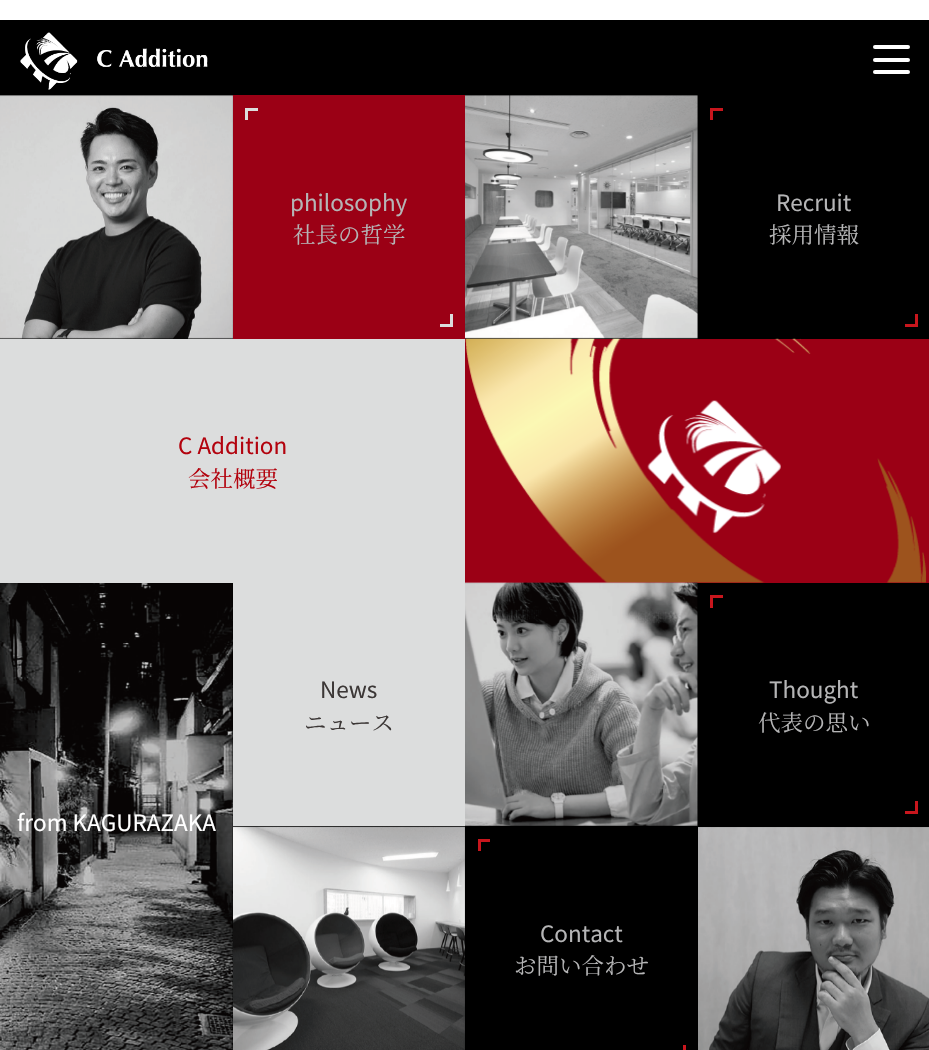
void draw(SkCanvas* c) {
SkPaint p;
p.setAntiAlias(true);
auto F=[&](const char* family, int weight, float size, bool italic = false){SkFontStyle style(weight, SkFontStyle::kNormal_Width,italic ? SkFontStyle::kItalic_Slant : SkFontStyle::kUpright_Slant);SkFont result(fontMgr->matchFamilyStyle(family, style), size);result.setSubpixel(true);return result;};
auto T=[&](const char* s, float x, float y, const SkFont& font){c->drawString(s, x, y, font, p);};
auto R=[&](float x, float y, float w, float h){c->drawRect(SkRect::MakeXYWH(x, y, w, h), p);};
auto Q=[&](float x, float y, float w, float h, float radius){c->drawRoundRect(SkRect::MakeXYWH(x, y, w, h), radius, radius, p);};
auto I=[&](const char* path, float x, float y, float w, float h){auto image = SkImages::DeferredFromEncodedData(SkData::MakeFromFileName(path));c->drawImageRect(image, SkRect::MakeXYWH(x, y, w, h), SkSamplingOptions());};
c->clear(0xffffffff);
p.setColor(0xff000000);
R(0,20,929,1030);
I("1.png",20,32,188,58);
p.setColor(0xffffffff);
Q(873,58,37,4,2);
Q(873,45,37,4,2);
Q(873,70,37,4,2);
I("2.png",0,95,233,244);
p.setColor(0xff9b0015);
R(233,95,232,244);
p.setColor(0xffdcdddd);
R(245,108,13,3);
R(245,108,3,12);
auto f1 = F("Noto Sans JP",400,22.5);
p.setColor(0xffb5b5b6);
T("philosophy",290,211,f1);
auto f2 = F("Noto Serif JP",400,22.5);
T("社長の哲学",293,243,f2);
p.setColor(0xffdcdddd);
R(450,314,3,12);
R(440,324,13,3);
I("3.png",465,95,233,244);
p.setColor(0xffc8161d);
R(710,108,13,3);
R(710,108,3,12);
p.setColor(0xffb5b5b6);
T("Recruit",776,211,f1);
T("採用情報",769,243,f2);
p.setColor(0xffc8161d);
R(915,314,3,12);
R(905,324,13,3);
p.setColor(0xffdcdddd);
R(0,339,465,244);
p.setColor(0xffb3030e);
T("C Addition",178,454,f1);
T("会社概要",188,487,f2);
p.setColor(0xff9b0015);
R(465,339,464,244);
I("4.png",465,338,462,245);
p.setColor(0xffdcdddd);
R(233,583,232,243);
p.setColor(0xff3c3736);
T("News",320,698,f1);
T("ニュース",304,731,f2);
I("5.png",233,826,232,224);
p.setColor(0xffc8161d);
R(710,595,13,3);
R(710,595,3,13);
p.setColor(0xffb5b5b6);
T("Thought",769,698,f1);
T("代表の思い",758,731,f2);
p.setColor(0xffc8161d);
R(915,801,3,13);
R(905,811,13,3);
I("6.png",698,827,231,223);
I("7.png",0,583,233,467);
p.setColor(0xffffffff);
T("from KAGURAZAKA",17,831,f1);
I("8.png",465,582,233,244);
p.setColor(0xffc8161d);
R(478,839,12,3);
R(478,839,3,12);
p.setColor(0xffb5b5b6);
T("Contact",540,942,f1);
T("お問い合わせ",514,974,f2);
p.setColor(0xffc8161d);
R(683,1045,3,5);
}
